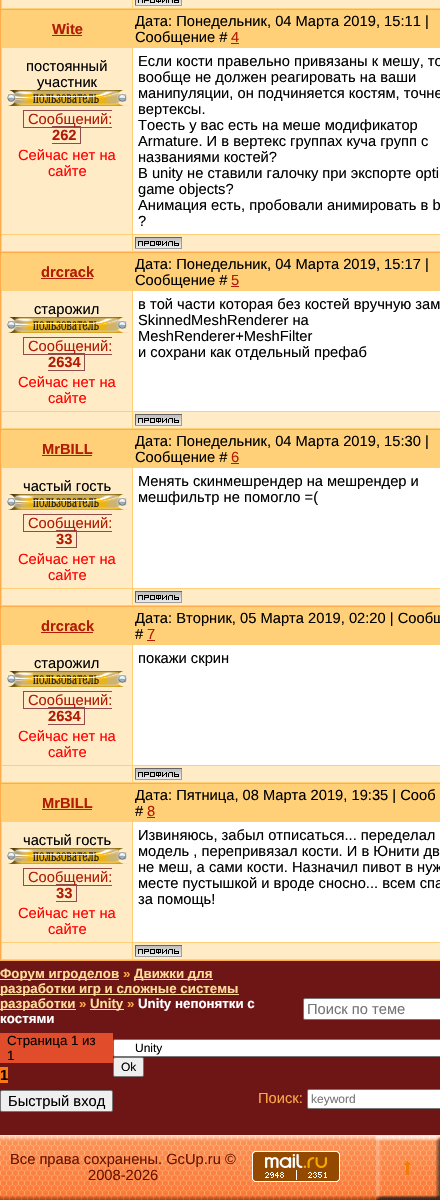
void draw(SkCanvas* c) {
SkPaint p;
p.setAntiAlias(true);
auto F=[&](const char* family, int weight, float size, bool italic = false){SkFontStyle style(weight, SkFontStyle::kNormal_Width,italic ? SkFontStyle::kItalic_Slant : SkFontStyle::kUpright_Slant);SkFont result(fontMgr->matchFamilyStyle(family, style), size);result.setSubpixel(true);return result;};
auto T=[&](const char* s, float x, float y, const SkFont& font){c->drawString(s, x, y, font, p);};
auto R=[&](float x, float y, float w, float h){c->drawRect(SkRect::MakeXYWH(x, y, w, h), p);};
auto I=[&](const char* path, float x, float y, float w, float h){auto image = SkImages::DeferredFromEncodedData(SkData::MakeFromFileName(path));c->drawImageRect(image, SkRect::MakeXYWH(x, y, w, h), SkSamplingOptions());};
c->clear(0xff6e1616);
p.setColor(0xffffac4c);
R(0,0,440,961);
p.setColor(0xffffd077);
R(1,0,439,9);
p.setColor(0xffffecc7);
R(2,0,130,8);
R(133,0,307,8);
I("1.png",135,0,47,6);
p.setColor(0xffffd077);
R(1,10,439,242);
auto f1 = F("Liberation Sans",700,14.7);
p.setColor(0xffb21b04);
T("Wite",52,34,f1);
R(52,35,30,1);
auto f2 = F("Liberation Sans",400,14.7);
p.setColor(0xff000000);
T("Дата: Понедельник, 04 Марта 2019, 15:11 |",135,26,f2);
T("Сообщение #",135,42,f2);
p.setColor(0xffb21b04);
T("4",231,42,f2);
R(231,43,8,1);
p.setColor(0xffffecc7);
R(2,48,130,186);
p.setColor(0xff000000);
T("постоянный",26,71,f2);
T("участник",37,87,f2);
I("2.png",7,90,120,16);
p.setColor(0xff934a4a);
R(52,126,29,1);
R(23,127,89,1);
R(80,126,1,18);
p.setColor(0xffb21b04);
T("Сообщений:",28,124,f2);
p.setColor(0xff934a4a);
R(23,110,89,1);
R(23,110,1,18);
p.setColor(0xffb21b04);
T("262",52,140,f1);
p.setColor(0xff934a4a);
R(52,143,29,1);
p.setColor(0xffff0000);
T("Сейчас нет на",18,160,f2);
T("сайте",48,176,f2);
p.setColor(0xffffffff);
R(133,48,307,186);
p.setColor(0xff000000);
T("Если кости правельно привязаны к мешу, то",138,66,f2);
T("вообще не должен реагировать на ваши",138,82,f2);
T("манипуляции, он подчиняется костям, точне",138,98,f2);
T("вертексы.",138,114,f2);
T("Тоесть у вас есть на меше модификатор",138,130,f2);
T("Armature. И в вертекс группах куча групп с",138,146,f2);
T("названиями костей?",138,162,f2);
T("В unity не ставили галочку при экспорте opti",138,178,f2);
T("game objects?",138,194,f2);
T("Анимация есть, пробовали анимировать в b",138,210,f2);
T("?",138,226,f2);
p.setColor(0xffffecc7);
R(2,235,130,16);
R(133,235,307,16);
I("3.png",135,237,47,12);
p.setColor(0xffffd077);
R(1,253,439,176);
p.setColor(0xffb21b04);
T("drcrack",41,277,f1);
R(41,278,52,1);
p.setColor(0xff000000);
T("Дата: Понедельник, 04 Марта 2019, 15:17 |",135,269,f2);
T("Сообщение #",135,285,f2);
p.setColor(0xffb21b04);
T("5",231,285,f2);
R(231,286,8,1);
p.setColor(0xffffecc7);
R(2,291,130,120);
p.setColor(0xff000000);
T("старожил",34,314,f2);
I("2.png",7,317,120,16);
p.setColor(0xff934a4a);
R(48,353,37,1);
R(23,354,89,1);
R(84,353,1,18);
p.setColor(0xffb21b04);
T("Сообщений:",28,351,f2);
p.setColor(0xff934a4a);
R(23,337,89,1);
R(23,337,1,18);
p.setColor(0xffb21b04);
T("2634",48,367,f1);
p.setColor(0xff934a4a);
R(48,370,37,1);
p.setColor(0xffff0000);
T("Сейчас нет на",18,387,f2);
T("сайте",48,403,f2);
p.setColor(0xffffffff);
R(133,291,307,120);
p.setColor(0xff000000);
T("в той части которая без костей вручную зам",138,309,f2);
T("SkinnedMeshRenderer на",138,325,f2);
T("MeshRenderer+MeshFilter",138,341,f2);
T("и сохрани как отдельный префаб",138,357,f2);
p.setColor(0xffffecc7);
R(2,412,130,16);
R(133,412,307,16);
I("3.png",135,414,47,12);
p.setColor(0xffffd077);
R(1,430,439,176);
p.setColor(0xffb21b04);
T("MrBILL",42,454,f1);
R(42,455,50,1);
p.setColor(0xff000000);
T("Дата: Понедельник, 04 Марта 2019, 15:30 |",135,446,f2);
T("Сообщение #",135,462,f2);
p.setColor(0xffb21b04);
T("6",231,462,f2);
R(231,463,8,1);
p.setColor(0xffffecc7);
R(2,468,130,120);
p.setColor(0xff000000);
T("частый гость",23,491,f2);
I("2.png",7,494,120,16);
p.setColor(0xff934a4a);
R(56,530,21,1);
R(23,531,89,1);
R(76,530,1,18);
p.setColor(0xffb21b04);
T("Сообщений:",28,528,f2);
p.setColor(0xff934a4a);
R(23,514,89,1);
R(23,514,1,18);
p.setColor(0xffb21b04);
T("33",56,544,f1);
p.setColor(0xff934a4a);
R(56,547,21,1);
p.setColor(0xffff0000);
T("Сейчас нет на",18,564,f2);
T("сайте",48,580,f2);
p.setColor(0xffffffff);
R(133,468,307,120);
p.setColor(0xff000000);
T("Менять скинмешрендер на мешрендер и",138,486,f2);
T("мешфильтр не помогло =(",138,502,f2);
p.setColor(0xffffecc7);
R(2,589,130,16);
R(133,589,307,16);
I("3.png",135,591,47,12);
p.setColor(0xffffd077);
R(1,607,439,176);
p.setColor(0xffb21b04);
T("drcrack",41,631,f1);
R(41,632,52,1);
p.setColor(0xff000000);
T("Дата: Вторник, 05 Марта 2019, 02:20 | Сообщ",135,623,f2);
T("#",135,639,f2);
p.setColor(0xffb21b04);
T("7",147,639,f2);
R(147,640,8,1);
p.setColor(0xffffecc7);
R(2,645,130,120);
p.setColor(0xff000000);
T("старожил",34,668,f2);
I("2.png",7,671,120,16);
p.setColor(0xff934a4a);
R(48,707,37,1);
R(23,708,89,1);
R(84,707,1,18);
p.setColor(0xffb21b04);
T("Сообщений:",28,705,f2);
p.setColor(0xff934a4a);
R(23,691,89,1);
R(23,691,1,18);
p.setColor(0xffb21b04);
T("2634",48,721,f1);
p.setColor(0xff934a4a);
R(48,724,37,1);
p.setColor(0xffff0000);
T("Сейчас нет на",18,741,f2);
T("сайте",48,757,f2);
p.setColor(0xffffffff);
R(133,645,307,120);
p.setColor(0xff000000);
T("покажи скрин",138,663,f2);
p.setColor(0xffffecc7);
R(2,766,130,16);
R(133,766,307,16);
I("3.png",135,768,47,12);
p.setColor(0xffffd077);
R(1,784,439,176);
p.setColor(0xffb21b04);
T("MrBILL",42,808,f1);
R(42,809,50,1);
p.setColor(0xff000000);
T("Дата: Пятница, 08 Марта 2019, 19:35 | Сооб",135,800,f2);
T("#",135,816,f2);
p.setColor(0xffb21b04);
T("8",147,816,f2);
R(147,817,8,1);
p.setColor(0xffffecc7);
R(2,822,130,120);
p.setColor(0xff000000);
T("частый гость",23,845,f2);
I("2.png",7,848,120,16);
p.setColor(0xff934a4a);
R(56,884,21,1);
R(23,885,89,1);
R(76,884,1,18);
p.setColor(0xffb21b04);
T("Сообщений:",28,882,f2);
p.setColor(0xff934a4a);
R(23,868,89,1);
R(23,868,1,18);
p.setColor(0xffb21b04);
T("33",56,898,f1);
p.setColor(0xff934a4a);
R(56,901,21,1);
p.setColor(0xffff0000);
T("Сейчас нет на",18,918,f2);
T("сайте",48,934,f2);
p.setColor(0xffffffff);
R(133,822,307,120);
p.setColor(0xff000000);
T("Извиняюсь, забыл отписаться... переделал",138,840,f2);
T("модель , перепривязал кости. И в Юнити дв",138,856,f2);
T("не меш, а сами кости. Назначил пивот в нуж",138,872,f2);
T("месте пустышкой и вроде сносно... всем спа",138,888,f2);
T("за помощь!",138,904,f2);
p.setColor(0xffffecc7);
R(2,943,130,16);
R(133,943,307,16);
I("3.png",135,945,47,12);
p.setColor(0xffffdc99);
R(0,979,119,1);
auto f3 = F("Liberation Sans",700,13.3);
T("Форум игроделов",0,978,f3);
p.setColor(0xffffa747);
T("»",123,978,f3);
p.setColor(0xffffdc99);
R(134,979,79,1);
T("Движки для",134,978,f3);
R(0,994,239,1);
T("разработки игр и сложные системы",0,993,f3);
R(0,1009,76,1);
T("разработки",0,1008,f3);
p.setColor(0xffffa747);
T("»",79,1008,f3);
p.setColor(0xffffdc99);
R(90,1009,34,1);
T("Unity",90,1008,f3);
p.setColor(0xffffa747);
T("»",127,1008,f3);
p.setColor(0xffffffff);
T("Unity непонятки с",138,1008,f3);
T("костями",0,1023,f3);
c->drawRoundRect(SkRect::MakeXYWH(303.5,998.5,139,21),1.5,1.5,p);
p.setStroke(true);
p.setStrokeWidth(1);
p.setColor(0xff767676);
c->drawRoundRect(SkRect::MakeXYWH(303.5,998.5,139,21),1.5,1.5,p);
p.setStroke(false);
p.setColor(0xff757575);
T("Поиск по теме",307,1014,f2);
p.setColor(0xffe14c2a);
R(0,1033,113,30);
auto f4 = F("Liberation Sans",400,13.3);
p.setColor(0xff000000);
T("Страница 1 из",7,1045,f4);
T("1",7,1060,f4);
p.setColor(0xffff7611);
R(0,1067,8,16);
p.setColor(0xff000000);
T("1",0,1080,f1);
p.setColor(0xffffffff);
c->drawRoundRect(SkRect::MakeXYWH(113.5,1039.5,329,17),1.5,1.5,p);
p.setStroke(true);
p.setColor(0xff767676);
c->drawRoundRect(SkRect::MakeXYWH(113.5,1039.5,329,17),1.5,1.5,p);
auto f5 = F("Liberation Sans",400,12);
p.setStroke(false);
p.setColor(0xff000000);
T("Unity",135,1052,f5);
p.setColor(0xffefefef);
c->drawRoundRect(SkRect::MakeXYWH(113.5,1057.5,30,19),1.5,1.5,p);
p.setStroke(true);
p.setColor(0xff767676);
c->drawRoundRect(SkRect::MakeXYWH(113.5,1057.5,30,19),1.5,1.5,p);
p.setStroke(false);
p.setColor(0xff000000);
T("Ok",121,1071,f5);
p.setColor(0xffefefef);
c->drawRoundRect(SkRect::MakeXYWH(.5,1090.5,112,21),1.5,1.5,p);
p.setStroke(true);
p.setColor(0xff767676);
c->drawRoundRect(SkRect::MakeXYWH(.5,1090.5,112,21),1.5,1.5,p);
p.setStroke(false);
p.setColor(0xff000000);
T("Быстрый вход",8,1106,f2);
p.setColor(0xffffa747);
T("Поиск:",258,1103,f2);
p.setColor(0xffffffff);
c->drawRoundRect(SkRect::MakeXYWH(307.5,1089.5,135,19),1.5,1.5,p);
p.setStroke(true);
p.setColor(0xff767676);
c->drawRoundRect(SkRect::MakeXYWH(307.5,1089.5,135,19),1.5,1.5,p);
p.setStroke(false);
p.setColor(0xff757575);
T("keyword",311,1103,f5);
I("4.png",0,1133,440,67);
p.setColor(0xff691400);
T("Все права сохранены. GcUp.ru ©",10,1164,f2);
T("2008-2026",88,1180,f2);
I("5.png",252,1151,88,31);
I("6.png",376,1136,64,64);
}
